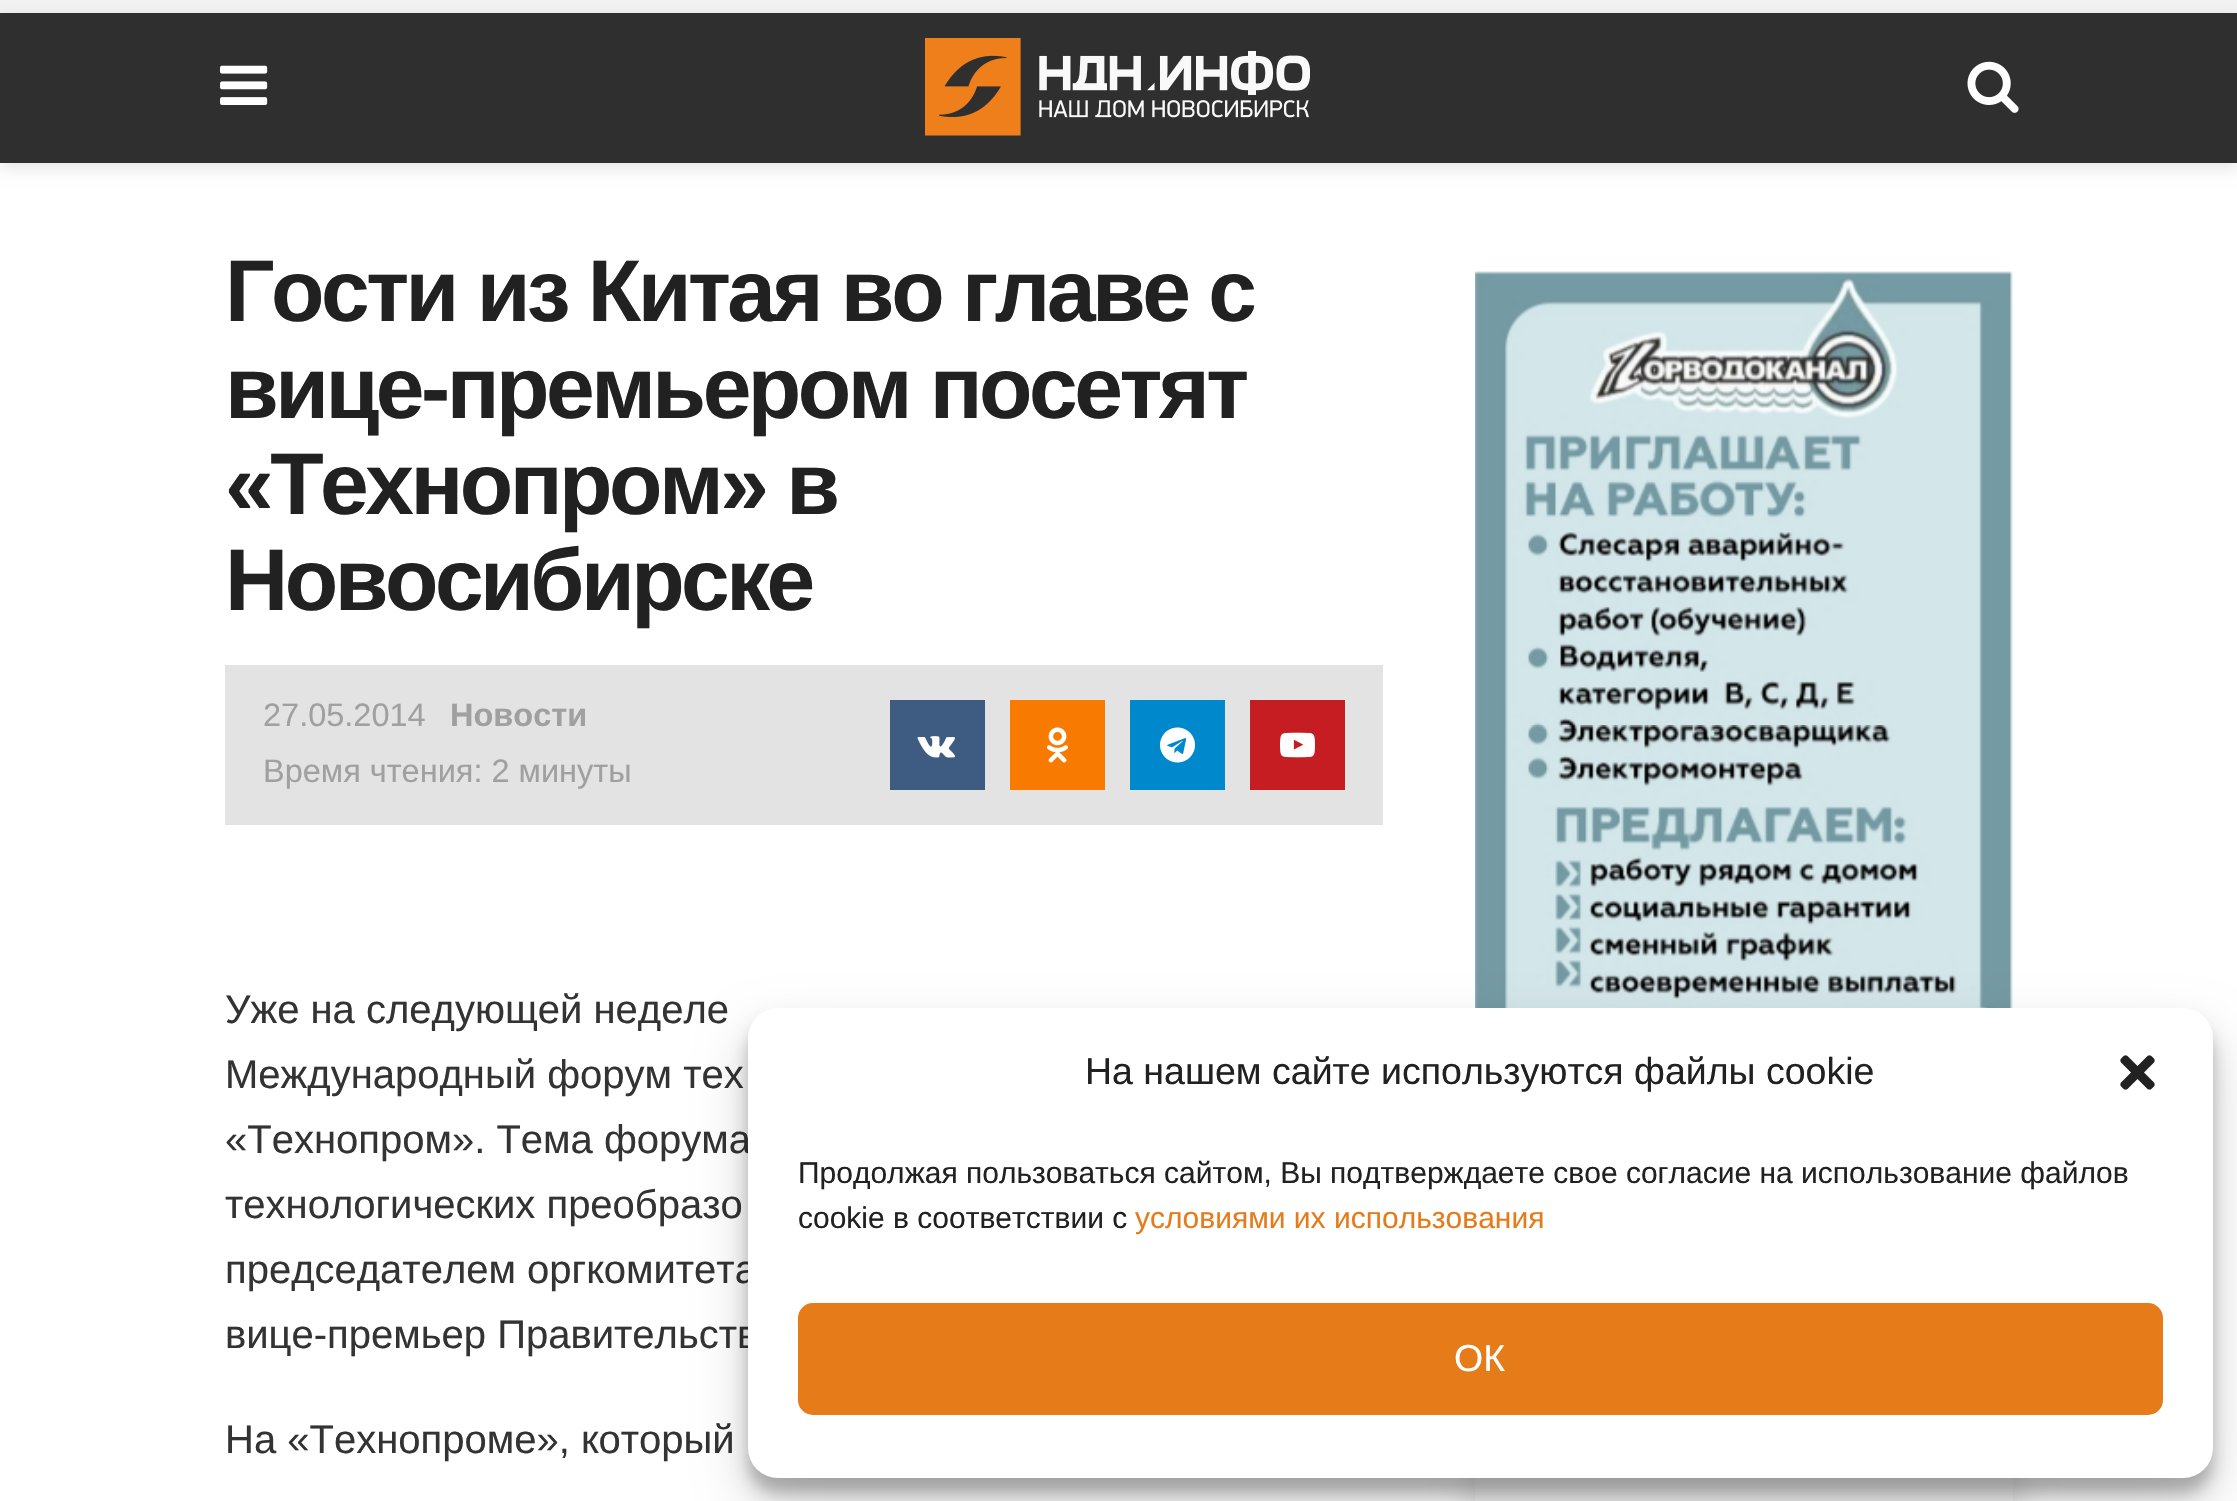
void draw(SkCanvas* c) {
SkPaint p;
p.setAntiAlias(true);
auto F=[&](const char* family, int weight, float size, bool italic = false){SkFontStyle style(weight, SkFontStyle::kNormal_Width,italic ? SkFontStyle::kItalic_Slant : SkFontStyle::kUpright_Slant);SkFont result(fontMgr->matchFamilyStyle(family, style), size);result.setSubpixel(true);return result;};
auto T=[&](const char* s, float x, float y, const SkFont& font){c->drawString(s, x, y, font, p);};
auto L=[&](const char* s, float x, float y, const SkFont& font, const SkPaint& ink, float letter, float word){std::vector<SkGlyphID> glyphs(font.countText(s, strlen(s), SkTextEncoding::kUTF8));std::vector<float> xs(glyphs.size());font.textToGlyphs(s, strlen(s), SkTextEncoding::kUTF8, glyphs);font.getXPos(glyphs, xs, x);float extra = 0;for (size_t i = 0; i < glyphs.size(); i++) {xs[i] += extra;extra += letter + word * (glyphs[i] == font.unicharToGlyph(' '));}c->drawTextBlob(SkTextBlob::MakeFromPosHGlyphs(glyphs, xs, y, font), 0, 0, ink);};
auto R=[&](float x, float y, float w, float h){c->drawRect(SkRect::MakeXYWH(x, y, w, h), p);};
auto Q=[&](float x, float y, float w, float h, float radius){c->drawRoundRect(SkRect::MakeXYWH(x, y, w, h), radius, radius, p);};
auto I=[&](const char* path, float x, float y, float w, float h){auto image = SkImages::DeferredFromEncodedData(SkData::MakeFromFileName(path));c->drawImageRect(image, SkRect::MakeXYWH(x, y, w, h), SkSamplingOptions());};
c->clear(0xfff2f2f2);
p.setColor(0xffffffff);
R(0,163,2237,1338);
p.setColor(0x1a000000);
p.setMaskFilter(SkMaskFilter::MakeBlur(kNormal_SkBlurStyle, 7.5));
c->drawRect(SkRect::MakeXYWH(0,18,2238,150),p);
p.setMaskFilter(nullptr);
p.setColor(0xff2f2f2f);
R(0,13,2237,150);
I("1.png",220,65,48,40);
I("2.png",925,38,385,98);
I("3.png",1967,61,52,52);
auto f1 = F("Liberation Sans",700,87.5);
p.setColor(0xff212121);
L("Гости из Китая во главе с",225,321,f1,p,-3.5,0);
L("вице-премьером посетят",225,418,f1,p,-3.5,0);
L("«Технопром» в",225,514,f1,p,-3.5,0);
L("Новосибирске",225,610,f1,p,-3.5,0);
p.setColor(0xffe3e3e3);
R(225,665,1158,160);
auto f2 = F("Liberation Sans",400,32.5);
p.setColor(0xffa0a0a0);
T("27.05.2014",263,726,f2);
auto f3 = F("Liberation Sans",700,32.5);
T("Новости",450,726,f3);
T("Время чтения: 2 минуты",263,782,f2);
p.setColor(0xff3e5c82);
R(890,700,95,90);
I("4.png",917,736,38,22);
p.setColor(0xfff87b00);
R(1010,700,95,90);
I("5.png",1047,727,21,36);
p.setColor(0xff0088cc);
R(1130,700,95,90);
I("6.png",1160,727,35,36);
p.setColor(0xffc61d23);
R(1250,700,95,90);
I("7.png",1280,732,35,26);
auto f4 = F("Liberation Sans",400,40);
p.setColor(0xff333333);
T("Уже на следующей неделе",225,1023,f4);
T("Международный форум тех",225,1088,f4);
T("«Технопром». Тема форума",225,1153,f4);
T("технологических преобразо",225,1218,f4);
T("председателем оргкомитета",225,1283,f4);
T("вице-премьер Правительств",225,1348,f4);
T("На «Технопроме», который",225,1453,f4);
I("8.png",1475,271,538,737);
p.setColor(0x26000000);
p.setMaskFilter(SkMaskFilter::MakeBlur(kNormal_SkBlurStyle, 19));
c->drawRect(SkRect::MakeXYWH(1475,1458,538,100),p);
p.setMaskFilter(nullptr);
p.setColor(0xfff2f2f2);
R(1475,1478,538,23);
p.setColor(0x3b000000);
p.setMaskFilter(SkMaskFilter::MakeBlur(kNormal_SkBlurStyle, 7.5));
c->drawRoundRect(SkRect::MakeXYWH(748,1023,1465,470),30,30,p);
p.setMaskFilter(nullptr);
p.setColor(0x30000000);
p.setMaskFilter(SkMaskFilter::MakeBlur(kNormal_SkBlurStyle, 25));
c->drawRoundRect(SkRect::MakeXYWH(748,1033,1465,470),30,30,p);
p.setMaskFilter(nullptr);
p.setColor(0xffffffff);
Q(748,1008,1465,470,30);
auto f5 = F("Liberation Sans",400,37.5);
p.setColor(0xff212121);
T("На нашем сайте используются файлы cookie",1085,1084,f5);
I("9.png",2120,1055,35,35);
auto f6 = F("Liberation Sans",400,30);
T("Продолжая пользоваться сайтом, Вы подтверждаете свое согласие на использование файлов",798,1183,f6);
T("cookie в соответствии с",798,1228,f6);
p.setColor(0xffe67b1a);
T("условиями их использования",1135,1228,f6);
c->drawRoundRect(SkRect::MakeXYWH(799.5,1304.5,1362,109),13.5,13.5,p);
p.setStroke(true);
p.setStrokeWidth(3);
c->drawRoundRect(SkRect::MakeXYWH(799.5,1304.5,1362,109),13.5,13.5,p);
p.setStroke(false);
p.setColor(0xffffffff);
T("ОК",1454,1371,f5);
}
